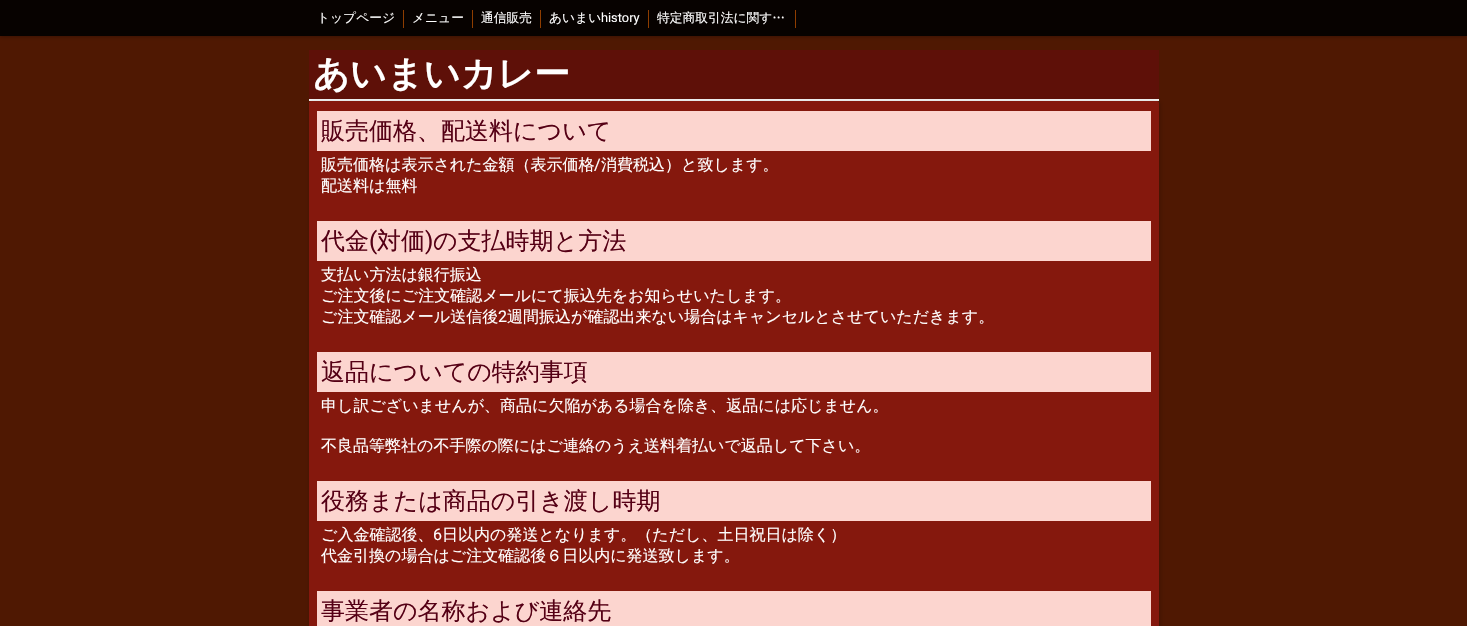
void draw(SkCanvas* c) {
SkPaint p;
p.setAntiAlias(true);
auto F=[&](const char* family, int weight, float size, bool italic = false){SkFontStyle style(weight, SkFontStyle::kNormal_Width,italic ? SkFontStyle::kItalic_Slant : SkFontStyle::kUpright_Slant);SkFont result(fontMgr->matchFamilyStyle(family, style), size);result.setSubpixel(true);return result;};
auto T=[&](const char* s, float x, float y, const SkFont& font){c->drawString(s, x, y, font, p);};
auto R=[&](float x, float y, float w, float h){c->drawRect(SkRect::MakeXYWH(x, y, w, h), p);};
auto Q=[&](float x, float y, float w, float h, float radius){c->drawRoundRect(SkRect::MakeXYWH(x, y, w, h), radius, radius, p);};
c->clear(0xff4f1802);
p.setColor(0x66010101);
p.setMaskFilter(SkMaskFilter::MakeBlur(kNormal_SkBlurStyle, 2));
c->drawRect(SkRect::MakeXYWH(0,0,1467,36),p);
p.setMaskFilter(nullptr);
p.setColor(0xff070200);
R(0,0,1467,36);
p.setColor(0xff8e3d00);
R(403,10,1,18);
auto f1 = F("WenQuanYi Zen Hei",500,12.75);
p.setColor(0xffffffff);
T("トップページ",317,22,f1);
p.setColor(0xff8e3d00);
R(472,10,1,18);
p.setColor(0xffffffff);
T("メニュー",412,22,f1);
p.setColor(0xff8e3d00);
R(540,10,1,18);
p.setColor(0xffffffff);
T("通信販売",481,22,f1);
p.setColor(0xff8e3d00);
R(648,10,1,18);
p.setColor(0xffffffff);
T("あいまい",549,22,f1);
auto f2 = F("Roboto",400,12.75);
T("history",601,22,f2);
p.setColor(0xff8e3d00);
R(795,10,1,18);
p.setColor(0xffffffff);
T("特定商取引法に関す…",657,22,f1);
p.setColor(0xff5e1008);
R(309,50,850,49);
p.setColor(0xfff5f5f5);
R(309,99,850,2);
auto f3 = F("WenQuanYi Zen Hei",700,36);
p.setColor(0xffffffff);
T("あいまいカレー",313,86,f3);
p.setColor(0x33000000);
p.setMaskFilter(SkMaskFilter::MakeBlur(kNormal_SkBlurStyle, 2.5));
c->drawRoundRect(SkRect::MakeXYWH(310,102,850,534),2,2,p);
p.setMaskFilter(nullptr);
p.setColor(0xff85180d);
Q(309,101,850,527,2);
p.setColor(0xfffcd5cf);
R(317,111,834,40);
auto f4 = F("WenQuanYi Zen Hei",500,24);
p.setColor(0xff550015);
T("販売価格、配送料について",321,139,f4);
auto f5 = F("WenQuanYi Zen Hei",500,16);
p.setColor(0xffffffff);
T("販売価格は表示された金額（表示価格",321,170,f5);
auto f6 = F("Roboto",400,16);
T("/",594,170,f6);
T("消費税込）と致します。",601,170,f5);
T("配送料は無料",321,191,f5);
p.setColor(0xfffcd5cf);
R(317,221,834,40);
p.setColor(0xff550015);
T("代金",321,249,f4);
auto f7 = F("Roboto",400,24);
T("(",369,249,f7);
T("対価",377,249,f4);
T(")",425,249,f7);
T("の支払時期と方法",433,249,f4);
p.setColor(0xffffffff);
T("支払い方法は銀行振込",321,280,f5);
T("ご注文後にご注文確認メールにて振込先をお知らせいたします。",321,301,f5);
T("ご注文確認メール送信後",321,322,f5);
T("2",498,322,f6);
T("週間振込が確認出来ない場合はキャンセルとさせていただきます。",507,322,f5);
p.setColor(0xfffcd5cf);
R(317,352,834,40);
p.setColor(0xff550015);
T("返品についての特約事項",321,380,f4);
p.setColor(0xffffffff);
T("申し訳ございませんが、商品に欠陥がある場合を除き、返品には応じません。",321,411,f5);
T("不良品等弊社の不手際の際にはご連絡のうえ送料着払いで返品して下さい。",321,451,f5);
p.setColor(0xfffcd5cf);
R(317,481,834,40);
p.setColor(0xff550015);
T("役務または商品の引き渡し時期",321,509,f4);
p.setColor(0xffffffff);
T("ご入金確認後、",321,540,f5);
T("6",433,540,f6);
T("日以内の発送となります。（ただし、土日祝日は除く）",442,540,f5);
T("代金引換の場合はご注文確認後６日以内に発送致します。",321,561,f5);
p.setColor(0xfffcd5cf);
R(317,591,834,35);
p.setColor(0xff550015);
T("事業者の名称および連絡先",321,619,f4);
}
